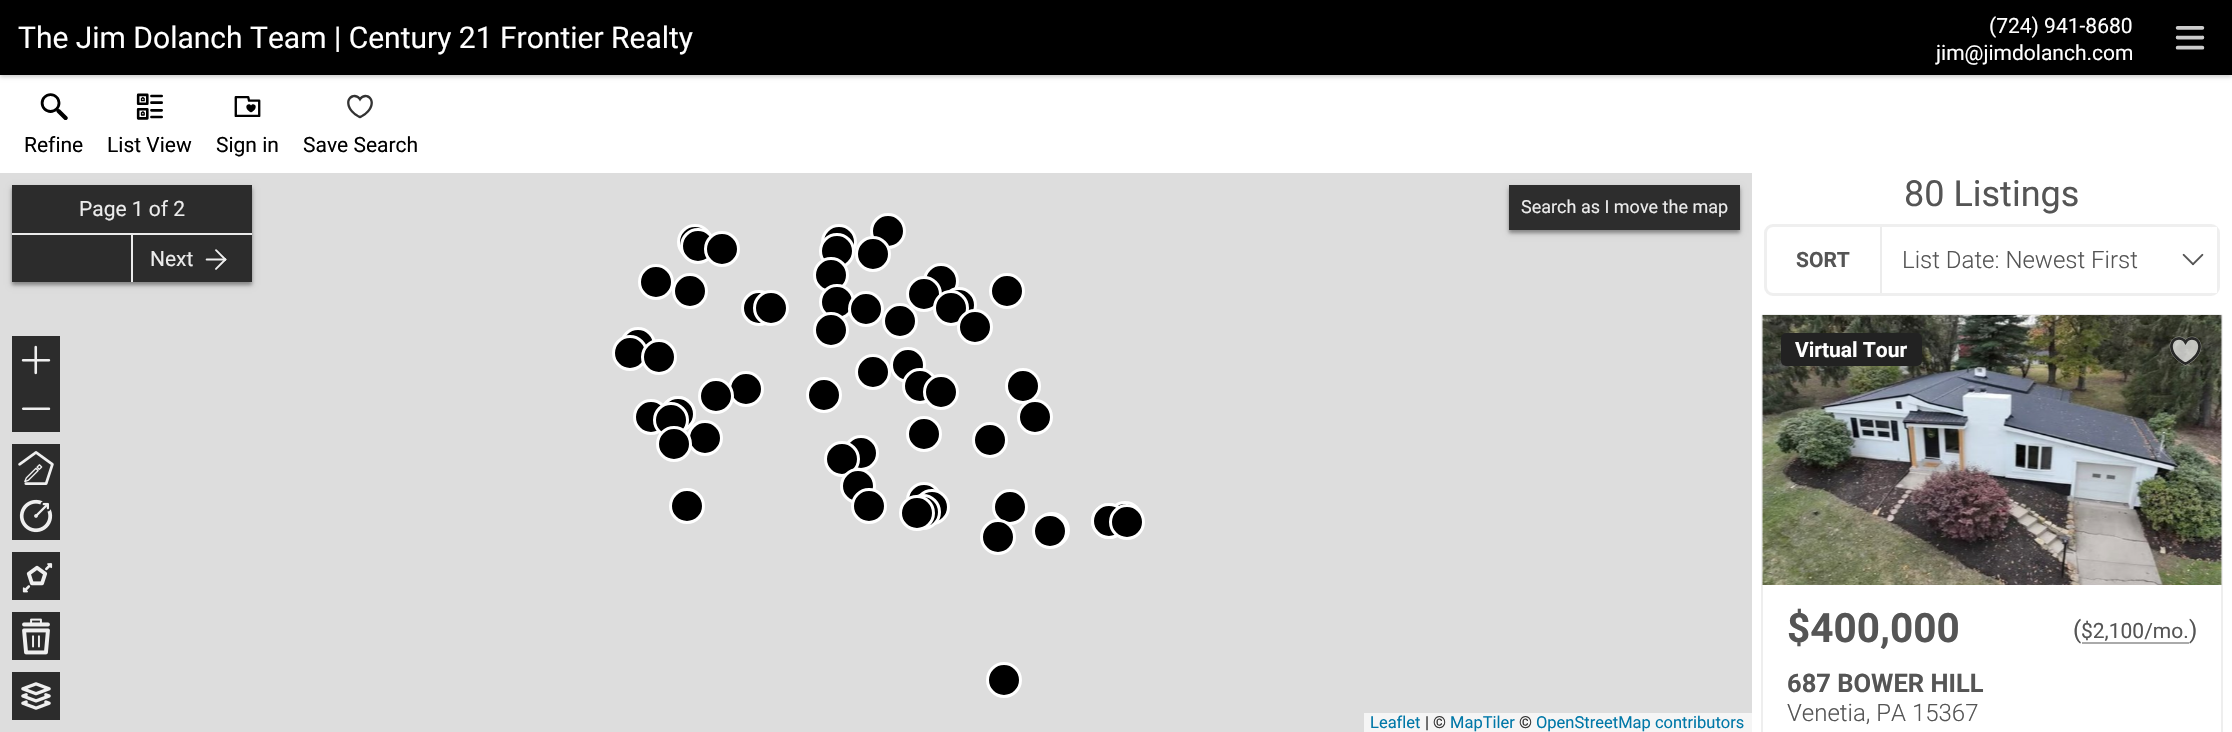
void draw(SkCanvas* c) {
SkPaint p;
p.setAntiAlias(true);
auto F=[&](const char* family, int weight, float size, bool italic = false){SkFontStyle style(weight, SkFontStyle::kNormal_Width,italic ? SkFontStyle::kItalic_Slant : SkFontStyle::kUpright_Slant);SkFont result(fontMgr->matchFamilyStyle(family, style), size);result.setSubpixel(true);return result;};
auto T=[&](const char* s, float x, float y, const SkFont& font){c->drawString(s, x, y, font, p);};
auto R=[&](float x, float y, float w, float h){c->drawRect(SkRect::MakeXYWH(x, y, w, h), p);};
auto Q=[&](float x, float y, float w, float h, float radius){c->drawRoundRect(SkRect::MakeXYWH(x, y, w, h), radius, radius, p);};
auto I=[&](const char* path, float x, float y, float w, float h){auto image = SkImages::DeferredFromEncodedData(SkData::MakeFromFileName(path));c->drawImageRect(image, SkRect::MakeXYWH(x, y, w, h), SkSamplingOptions());};
auto P=[&](const char* data, bool evenOdd = false){SkPath result = *SkParsePath::FromSVGString(data);if (evenOdd) result.setFillType(SkPathFillType::kEvenOdd);return result;};
c->clear(0xffffffff);
p.setColor(0x33000000);
p.setMaskFilter(SkMaskFilter::MakeBlur(kNormal_SkBlurStyle, 2));
c->drawRect(SkRect::MakeXYWH(0,2,2232,75),p);
p.setMaskFilter(nullptr);
p.setColor(0xff000000);
R(0,0,2232,75);
auto f1 = F("Roboto",400,30);
p.setColor(0xffffffff);
T("The Jim Dolanch Team | Century 21 Frontier Realty",18,48,f1);
auto f2 = F("Roboto",400,21);
T("(724) 941-8680",1989,33,f2);
T("jim@jimdolanch.com",1936,60,f2);
I("1.png",2175,26,30,24);
I("2.png",40,93,28,27);
p.setColor(0xff000000);
T("Refine",24,152,f2);
I("3.png",136,93,27,27);
T("List View",107,152,f2);
I("4.png",234,96,27,21);
T("Sign in",216,152,f2);
I("5.png",347,94,26,25);
T("Save Search",303,152,f2);
p.setColor(0xffdddddd);
R(0,173,1752,559);
p.setColor(0x40000000);
p.setMaskFilter(SkMaskFilter::MakeBlur(kNormal_SkBlurStyle, 1.5));
c->drawRect(SkRect::MakeXYWH(12,188,240,97),p);
p.setMaskFilter(nullptr);
p.setColor(0x33000000);
p.setMaskFilter(SkMaskFilter::MakeBlur(kNormal_SkBlurStyle, 3));
c->drawRect(SkRect::MakeXYWH(12,188,240,97),p);
p.setMaskFilter(nullptr);
p.setColor(0xff2c2c2c);
R(12,185,240,97);
p.setColor(0xffececec);
T("Page 1 of 2",79,216,f2);
R(12,233,240,2);
R(131,234,2,48);
T("Next",150,266,f2);
I("6.png",205,249,22,21);
p.setColor(0xff000000);
c->drawCircle(695,242,16.5,p);
p.setStroke(true);
p.setStrokeWidth(3);
p.setColor(0xffffffff);
c->drawCircle(695,242,16.5,p);
p.setStroke(false);
p.setColor(0xff000000);
c->drawCircle(839,242,16.5,p);
p.setStroke(true);
p.setColor(0xffffffff);
c->drawCircle(839,242,16.5,p);
p.setStroke(false);
p.setColor(0xff000000);
c->drawCircle(888,231,16.5,p);
p.setStroke(true);
p.setColor(0xffffffff);
c->drawCircle(888,231,16.5,p);
p.setStroke(false);
p.setColor(0xff000000);
c->drawCircle(698,246,16.5,p);
p.setStroke(true);
p.setColor(0xffffffff);
c->drawCircle(698,246,16.5,p);
p.setStroke(false);
p.setColor(0xff000000);
c->drawCircle(722,249,16.5,p);
p.setStroke(true);
p.setColor(0xffffffff);
c->drawCircle(722,249,16.5,p);
p.setStroke(false);
p.setColor(0xff000000);
c->drawCircle(837,251,16.5,p);
p.setStroke(true);
p.setColor(0xffffffff);
c->drawCircle(837,251,16.5,p);
p.setStroke(false);
p.setColor(0xff000000);
c->drawCircle(873,254,16.5,p);
p.setStroke(true);
p.setColor(0xffffffff);
c->drawCircle(873,254,16.5,p);
p.setStroke(false);
p.setColor(0xff000000);
c->drawCircle(656,282,16.5,p);
p.setStroke(true);
p.setColor(0xffffffff);
c->drawCircle(656,282,16.5,p);
p.setStroke(false);
p.setColor(0xff000000);
c->drawCircle(690,291,16.5,p);
p.setStroke(true);
p.setColor(0xffffffff);
c->drawCircle(690,291,16.5,p);
p.setStroke(false);
p.setColor(0xff000000);
c->drawCircle(831,275,16.5,p);
p.setStroke(true);
p.setColor(0xffffffff);
c->drawCircle(831,275,16.5,p);
p.setStroke(false);
p.setColor(0xff000000);
c->drawCircle(941,281,16.5,p);
p.setStroke(true);
p.setColor(0xffffffff);
c->drawCircle(941,281,16.5,p);
p.setStroke(false);
p.setColor(0xff000000);
c->drawCircle(1007,291,16.5,p);
p.setStroke(true);
p.setColor(0xffffffff);
c->drawCircle(1007,291,16.5,p);
p.setStroke(false);
p.setColor(0xff000000);
c->drawCircle(759,308,16.5,p);
p.setStroke(true);
p.setColor(0xffffffff);
c->drawCircle(759,308,16.5,p);
p.setStroke(false);
p.setColor(0xff000000);
c->drawCircle(837,302,16.5,p);
p.setStroke(true);
p.setColor(0xffffffff);
c->drawCircle(837,302,16.5,p);
p.setStroke(false);
p.setColor(0xff000000);
c->drawCircle(924,294,16.5,p);
p.setStroke(true);
p.setColor(0xffffffff);
c->drawCircle(924,294,16.5,p);
p.setStroke(false);
p.setColor(0xff000000);
c->drawCircle(959,305,16.5,p);
p.setStroke(true);
p.setColor(0xffffffff);
c->drawCircle(959,305,16.5,p);
p.setStroke(false);
p.setColor(0xff000000);
c->drawCircle(638,345,16.5,p);
p.setStroke(true);
p.setColor(0xffffffff);
c->drawCircle(638,345,16.5,p);
p.setStroke(false);
p.setColor(0xff000000);
c->drawCircle(771,308,16.5,p);
p.setStroke(true);
p.setColor(0xffffffff);
c->drawCircle(771,308,16.5,p);
p.setStroke(false);
p.setColor(0xff000000);
c->drawCircle(866,309,16.5,p);
p.setStroke(true);
p.setColor(0xffffffff);
c->drawCircle(866,309,16.5,p);
p.setStroke(false);
p.setColor(0xff000000);
c->drawCircle(831,330,16.5,p);
p.setStroke(true);
p.setColor(0xffffffff);
c->drawCircle(831,330,16.5,p);
p.setStroke(false);
p.setColor(0xff000000);
c->drawCircle(900,321,16.5,p);
p.setStroke(true);
p.setColor(0xffffffff);
c->drawCircle(900,321,16.5,p);
p.setStroke(false);
p.setColor(0xff000000);
c->drawCircle(951,308,16.5,p);
p.setStroke(true);
p.setColor(0xffffffff);
c->drawCircle(951,308,16.5,p);
p.setStroke(false);
p.setColor(0xff000000);
c->drawCircle(975,327,16.5,p);
p.setStroke(true);
p.setColor(0xffffffff);
c->drawCircle(975,327,16.5,p);
p.setStroke(false);
p.setColor(0xff000000);
c->drawCircle(630,353,16.5,p);
p.setStroke(true);
p.setColor(0xffffffff);
c->drawCircle(630,353,16.5,p);
p.setStroke(false);
p.setColor(0xff000000);
c->drawCircle(659,357,16.5,p);
p.setStroke(true);
p.setColor(0xffffffff);
c->drawCircle(659,357,16.5,p);
p.setStroke(false);
p.setColor(0xff000000);
c->drawCircle(908,365,16.5,p);
p.setStroke(true);
p.setColor(0xffffffff);
c->drawCircle(908,365,16.5,p);
p.setStroke(false);
p.setColor(0xff000000);
c->drawCircle(873,372,16.5,p);
p.setStroke(true);
p.setColor(0xffffffff);
c->drawCircle(873,372,16.5,p);
c->drawCircle(678,414,16.5,p);
p.setStroke(false);
p.setColor(0xff000000);
c->drawCircle(746,389,16.5,p);
p.setStroke(true);
p.setColor(0xffffffff);
c->drawCircle(746,389,16.5,p);
p.setStroke(false);
p.setColor(0xff000000);
c->drawCircle(716,396,16.5,p);
p.setStroke(true);
p.setColor(0xffffffff);
c->drawCircle(716,396,16.5,p);
p.setStroke(false);
p.setColor(0xff000000);
c->drawCircle(824,395,16.5,p);
p.setStroke(true);
p.setColor(0xffffffff);
c->drawCircle(824,395,16.5,p);
p.setStroke(false);
p.setColor(0xff000000);
c->drawCircle(920,386,16.5,p);
p.setStroke(true);
p.setColor(0xffffffff);
c->drawCircle(920,386,16.5,p);
p.setStroke(false);
p.setColor(0xff000000);
c->drawCircle(941,392,16.5,p);
p.setStroke(true);
p.setColor(0xffffffff);
c->drawCircle(941,392,16.5,p);
p.setStroke(false);
p.setColor(0xff000000);
c->drawCircle(1023,386,16.5,p);
p.setStroke(true);
p.setColor(0xffffffff);
c->drawCircle(1023,386,16.5,p);
p.setStroke(false);
p.setColor(0xff000000);
c->drawCircle(678,414,16.5,p);
p.setStroke(true);
p.setColor(0xffffffff);
c->drawCircle(678,414,16.5,p);
p.setStroke(false);
p.setColor(0xff000000);
c->drawCircle(651,417,16.5,p);
p.setStroke(true);
p.setColor(0xffffffff);
c->drawCircle(651,417,16.5,p);
p.setStroke(false);
p.setColor(0xff000000);
c->drawCircle(1035,417,16.5,p);
p.setStroke(true);
p.setColor(0xffffffff);
c->drawCircle(1035,417,16.5,p);
p.setStroke(false);
p.setColor(0xff000000);
c->drawCircle(671,420,16.5,p);
p.setStroke(true);
p.setColor(0xffffffff);
c->drawCircle(671,420,16.5,p);
p.setStroke(false);
p.setColor(0xff000000);
c->drawCircle(705,438,16.5,p);
p.setStroke(true);
p.setColor(0xffffffff);
c->drawCircle(705,438,16.5,p);
p.setStroke(false);
p.setColor(0xff000000);
c->drawCircle(924,434,16.5,p);
p.setStroke(true);
p.setColor(0xffffffff);
c->drawCircle(924,434,16.5,p);
p.setStroke(false);
p.setColor(0xff000000);
c->drawCircle(990,440,16.5,p);
p.setStroke(true);
p.setColor(0xffffffff);
c->drawCircle(990,440,16.5,p);
p.setStroke(false);
p.setColor(0xff000000);
c->drawCircle(674,444,16.5,p);
p.setStroke(true);
p.setColor(0xffffffff);
c->drawCircle(674,444,16.5,p);
p.setStroke(false);
p.setColor(0xff000000);
c->drawCircle(861,453,16.5,p);
p.setStroke(true);
p.setColor(0xffffffff);
c->drawCircle(861,453,16.5,p);
p.setStroke(false);
p.setColor(0xff000000);
c->drawCircle(842,459,16.5,p);
p.setStroke(true);
p.setColor(0xffffffff);
c->drawCircle(842,459,16.5,p);
p.setStroke(false);
p.setColor(0xff000000);
c->drawCircle(687,506,16.5,p);
p.setStroke(true);
p.setColor(0xffffffff);
c->drawCircle(687,506,16.5,p);
p.setStroke(false);
p.setColor(0xff000000);
c->drawCircle(858,486,16.5,p);
p.setStroke(true);
p.setColor(0xffffffff);
c->drawCircle(858,486,16.5,p);
p.setStroke(false);
p.setColor(0xff000000);
c->drawCircle(924,500,16.5,p);
p.setStroke(true);
p.setColor(0xffffffff);
c->drawCircle(924,500,16.5,p);
p.setStroke(false);
p.setColor(0xff000000);
c->drawCircle(869,506,16.5,p);
p.setStroke(true);
p.setColor(0xffffffff);
c->drawCircle(869,506,16.5,p);
p.setStroke(false);
p.setColor(0xff000000);
c->drawCircle(932,507,16.5,p);
p.setStroke(true);
p.setColor(0xffffffff);
c->drawCircle(932,507,16.5,p);
p.setStroke(false);
p.setColor(0xff000000);
c->drawCircle(1010,507,16.5,p);
p.setStroke(true);
p.setColor(0xffffffff);
c->drawCircle(1010,507,16.5,p);
p.setStroke(false);
p.setColor(0xff000000);
c->drawCircle(923,512,16.5,p);
p.setStroke(true);
p.setColor(0xffffffff);
c->drawCircle(923,512,16.5,p);
p.setStroke(false);
p.setColor(0xff000000);
c->drawCircle(917,513,16.5,p);
p.setStroke(true);
p.setColor(0xffffffff);
c->drawCircle(917,513,16.5,p);
p.setStroke(false);
p.setColor(0xff000000);
c->drawCircle(1125,519,16.5,p);
p.setStroke(true);
p.setColor(0xffffffff);
c->drawCircle(1125,519,16.5,p);
c->drawCircle(1109,521,16.5,p);
p.setStroke(false);
p.setColor(0xff000000);
c->drawCircle(1109,521,16.5,p);
p.setStroke(true);
p.setColor(0xffffffff);
c->drawCircle(1109,521,16.5,p);
c->drawCircle(1052,530,16.5,p);
p.setStroke(false);
p.setColor(0xff000000);
c->drawCircle(1127,522,16.5,p);
p.setStroke(true);
p.setColor(0xffffffff);
c->drawCircle(1127,522,16.5,p);
p.setStroke(false);
p.setColor(0xff000000);
c->drawCircle(998,537,16.5,p);
p.setStroke(true);
p.setColor(0xffffffff);
c->drawCircle(998,537,16.5,p);
p.setStroke(false);
p.setColor(0xff000000);
c->drawCircle(1050,531,16.5,p);
p.setStroke(true);
p.setColor(0xffffffff);
c->drawCircle(1050,531,16.5,p);
p.setStroke(false);
p.setColor(0xff000000);
c->drawCircle(1004,680,16.5,p);
p.setStroke(true);
p.setColor(0xffffffff);
c->drawCircle(1004,680,16.5,p);
c->save();
c->clipPath(P("M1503 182h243v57h-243zm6 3h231v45h-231z",true),true);
p.setStroke(false);
p.setColor(0x40000000);
p.setMaskFilter(SkMaskFilter::MakeBlur(kNormal_SkBlurStyle, 1.5));
c->drawRect(SkRect::MakeXYWH(1509,188,231,45),p);
p.setMaskFilter(nullptr);
c->restore();
c->save();
c->clipPath(P("M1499 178h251v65h-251zm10 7h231v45h-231z",true),true);
p.setColor(0x33000000);
p.setMaskFilter(SkMaskFilter::MakeBlur(kNormal_SkBlurStyle, 3));
c->drawRect(SkRect::MakeXYWH(1509,188,231,45),p);
p.setMaskFilter(nullptr);
c->restore();
p.setColor(0xcc000000);
R(1509,185,231,45);
auto f3 = F("Roboto",400,18);
p.setColor(0xffececec);
T("Search as I move the map",1521,213,f3);
p.setColor(0xff2c2c2c);
R(12,336,48,96);
I("7.png",21,345,30,30);
p.setColor(0xffefefef);
c->drawPath(P("M23 407.5c-1.5 0-1.5 2.5 0 2.5h26.5c1-.5 1-2.5-.5-2.5z"),p);
p.setColor(0xff2c2c2c);
R(12,444,48,96);
I("8.png",18,451,36,34);
I("9.png",19,499,34,34);
R(12,552,48,48);
I("10.png",22,563,31,30);
R(12,612,48,48);
I("11.png",22,618,28,37);
R(12,672,48,48);
I("12.png",21,682,30,28);
p.setColor(0xfff5f5f5);
R(1364,713,388,19);
auto f4 = F("Roboto",400,16.5);
p.setColor(0xff0078a8);
T("Leaflet",1370,728,f4);
p.setColor(0xff333333);
T("| ©",1425,728,f4);
p.setColor(0xff0078a8);
T("MapTiler",1450,728,f4);
p.setColor(0xff333333);
T("©",1519,728,f4);
p.setColor(0xff0078a8);
T("OpenStreetMap contributors",1536,728,f4);
auto f5 = F("Roboto",400,36);
p.setColor(0xff555555);
T("80 Listings",1904,206,f5);
p.setStroke(true);
p.setColor(0xffefefef);
c->drawRoundRect(SkRect::MakeXYWH(1765.5,225.5,453,69),7.5,7.5,p);
auto f6 = F("Roboto",700,21);
p.setStroke(false);
p.setColor(0xff555555);
T("SORT",1796,267,f6);
p.setColor(0xffffffff);
R(2212,227,5,66);
p.setColor(0xffececec);
R(1880,227,2,66);
auto f7 = F("Roboto",300,24);
p.setColor(0xff555555);
T("List Date: Newest First",1902,268,f7);
I("13.png",2182,253,22,13);
p.setStroke(true);
p.setStrokeWidth(2);
p.setColor(0xffeeeeee);
c->drawRoundRect(SkRect::MakeXYWH(1762,315,460,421),2,2,p);
I("14.png",1762,315,460,270);
p.setStroke(false);
p.setColor(0xff222222);
Q(1781,333,141,33,5);
p.setColor(0xffffffff);
T("Virtual Tour",1795,357,f6);
I("15.png",2169,336,33,30);
auto f8 = F("Roboto",700,40.5);
p.setColor(0xff555555);
T("$400,000",1787,642,f8);
auto f9 = F("Roboto",400,24);
T("(",2073,638,f9);
p.setColor(0xffaaaaaa);
R(2082,642,107,2);
p.setColor(0xff555555);
T("$2,100/mo.",2081,638,f2);
T(")",2189,638,f9);
auto f10 = F("Roboto",700,25.5);
T("687 BOWER HILL",1787,692,f10);
T("Venetia, PA 15367",1787,721,f7);
}
